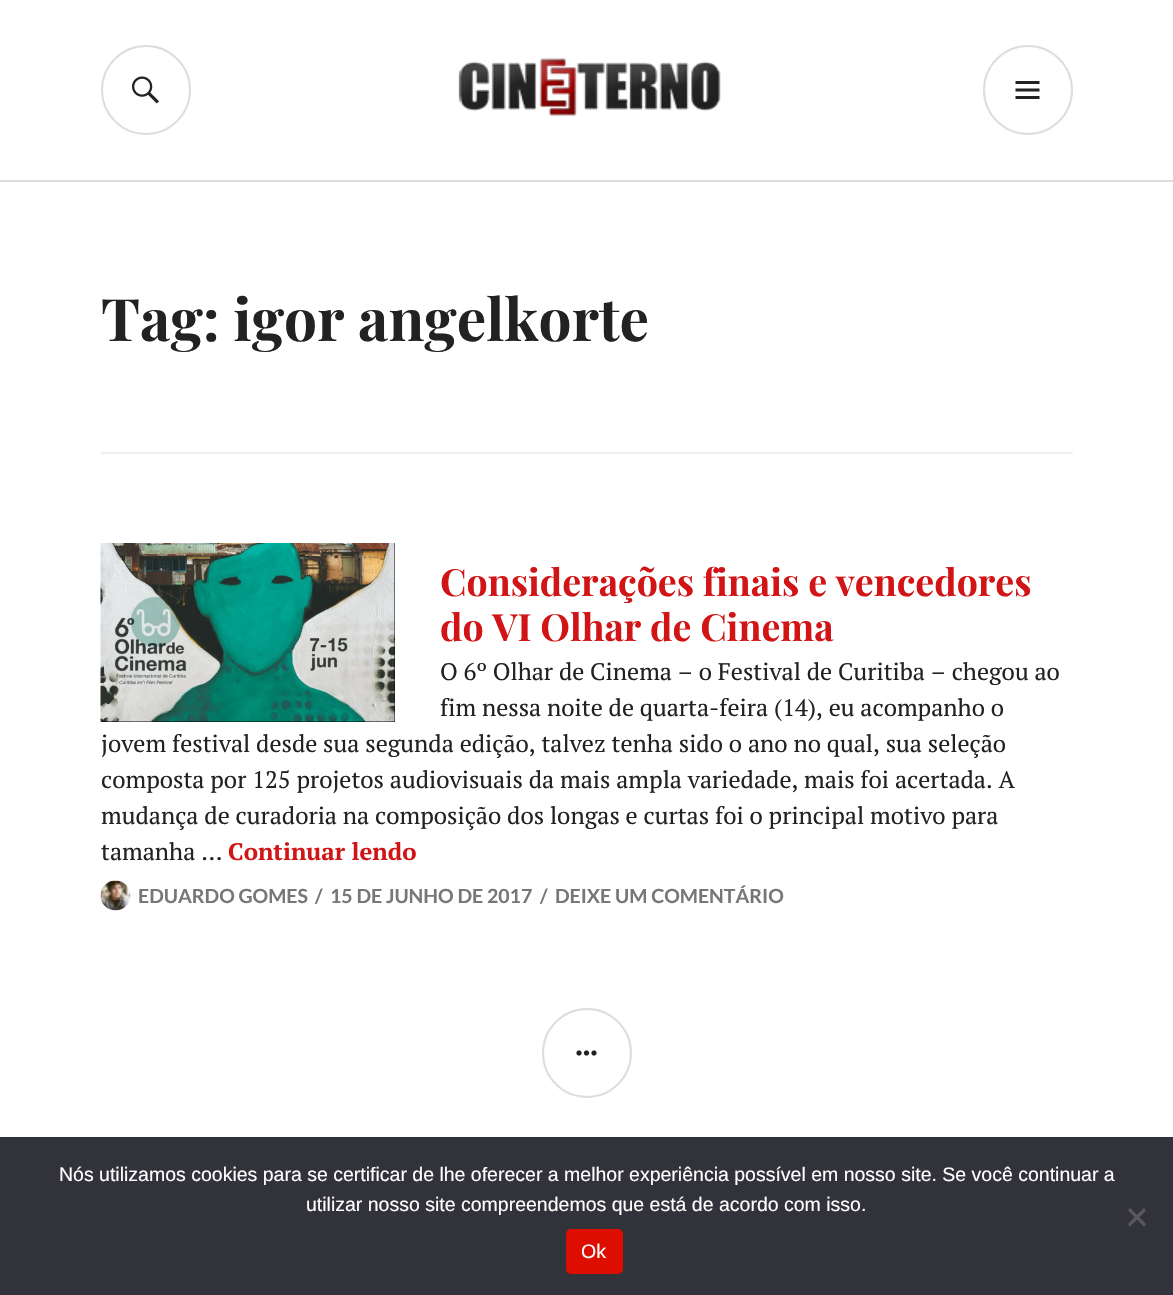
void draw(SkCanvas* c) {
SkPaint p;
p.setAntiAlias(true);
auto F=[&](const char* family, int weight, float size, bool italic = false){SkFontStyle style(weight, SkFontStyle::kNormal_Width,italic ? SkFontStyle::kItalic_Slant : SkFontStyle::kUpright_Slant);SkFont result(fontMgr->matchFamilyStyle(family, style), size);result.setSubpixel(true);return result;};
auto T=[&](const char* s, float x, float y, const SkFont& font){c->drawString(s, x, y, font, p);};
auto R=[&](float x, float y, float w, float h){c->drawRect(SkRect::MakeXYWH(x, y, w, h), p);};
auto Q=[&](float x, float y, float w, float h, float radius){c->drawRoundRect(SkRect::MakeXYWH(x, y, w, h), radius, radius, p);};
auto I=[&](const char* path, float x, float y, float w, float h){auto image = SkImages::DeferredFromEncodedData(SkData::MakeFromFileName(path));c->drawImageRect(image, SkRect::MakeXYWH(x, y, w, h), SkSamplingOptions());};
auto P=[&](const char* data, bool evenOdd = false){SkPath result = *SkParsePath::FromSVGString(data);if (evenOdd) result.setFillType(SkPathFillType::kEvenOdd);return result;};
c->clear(0xffffffff);
p.setColor(0xffdddddd);
R(0,180,1173,2);
p.setStroke(true);
p.setStrokeWidth(2);
c->drawCircle(146,90,44,p);
I("1.png",132,76,27,28);
c->drawCircle(1028,90,44,p);
I("2.png",1015,81,25,18);
I("3.png",458,58,263,58);
p.setStroke(false);
p.setColor(0xffeeeeee);
R(101,452,972,2);
auto f1 = F("Playfair Display",700,58.5);
p.setColor(0xff222222);
T("Tag: igor angelkorte",101,341,f1);
p.setColor(0xff000000);
R(101,543,294,179);
I("4.png",100,543,295,179);
auto f2 = F("Playfair Display",700,37.5);
p.setColor(0xffd11415);
T("Considerações finais e vencedores",440,596,f2);
T("do VI Olhar de Cinema",440,641,f2);
auto f3 = F("PT Serif",400,24);
p.setColor(0xff222222);
T("O 6º Olhar de Cinema – o Festival de Curitiba – chegou ao",440,680,f3);
T("fim nessa noite de quarta-feira (14), eu acompanho o",440,716,f3);
T("jovem festival desde sua segunda edição, talvez tenha sido o ano no qual, sua seleção",101,752,f3);
T("composta por 125 projetos audiovisuais da mais ampla variedade, mais foi acertada. A",101,788,f3);
T("mudança de curadoria na composição dos longas e curtas foi o principal motivo para",101,824,f3);
T("tamanha …",101,860,f3);
auto f4 = F("PT Serif",700,24);
p.setColor(0xffd11415);
T("Continuar lendo",228,860,f4);
I("5.png",100,880,31,31);
auto f5 = F("Lato",700,19.5);
p.setColor(0xff777777);
T("EDUARDO GOMES",138,903,f5);
T("/",315,903,f5);
T("15 DE JUNHO DE 2017",330,903,f5);
T("/",540,903,f5);
T("DEIXE UM COMENTÁRIO",555,903,f5);
p.setStroke(true);
p.setColor(0xffdddddd);
c->drawCircle(587,1053,44,p);
I("6.png",576,1050,21,6);
p.setStroke(false);
p.setColor(0xff32323a);
R(0,1137,1173,158);
auto f6 = F("Liberation Sans",400,19.5);
p.setColor(0xffffffff);
T("Nós utilizamos cookies para se certificar de lhe oferecer a melhor experiência possível em nosso site. Se você continuar a",59,1181,f6);
T("utilizar nosso site compreendemos que está de acordo com isso.",306,1211,f6);
p.setColor(0xff59595d);
c->drawPath(P("M1144 1208l2 2.5l-16 16l-2-2.5z"),p);
c->drawPath(P("M1128 1210.5l2-2.5l16 16l-2 2.5z"),p);
p.setColor(0xffdd0e00);
Q(566,1229,57,45,5);
p.setColor(0xffffffff);
T("Ok",581,1258,f6);
}
